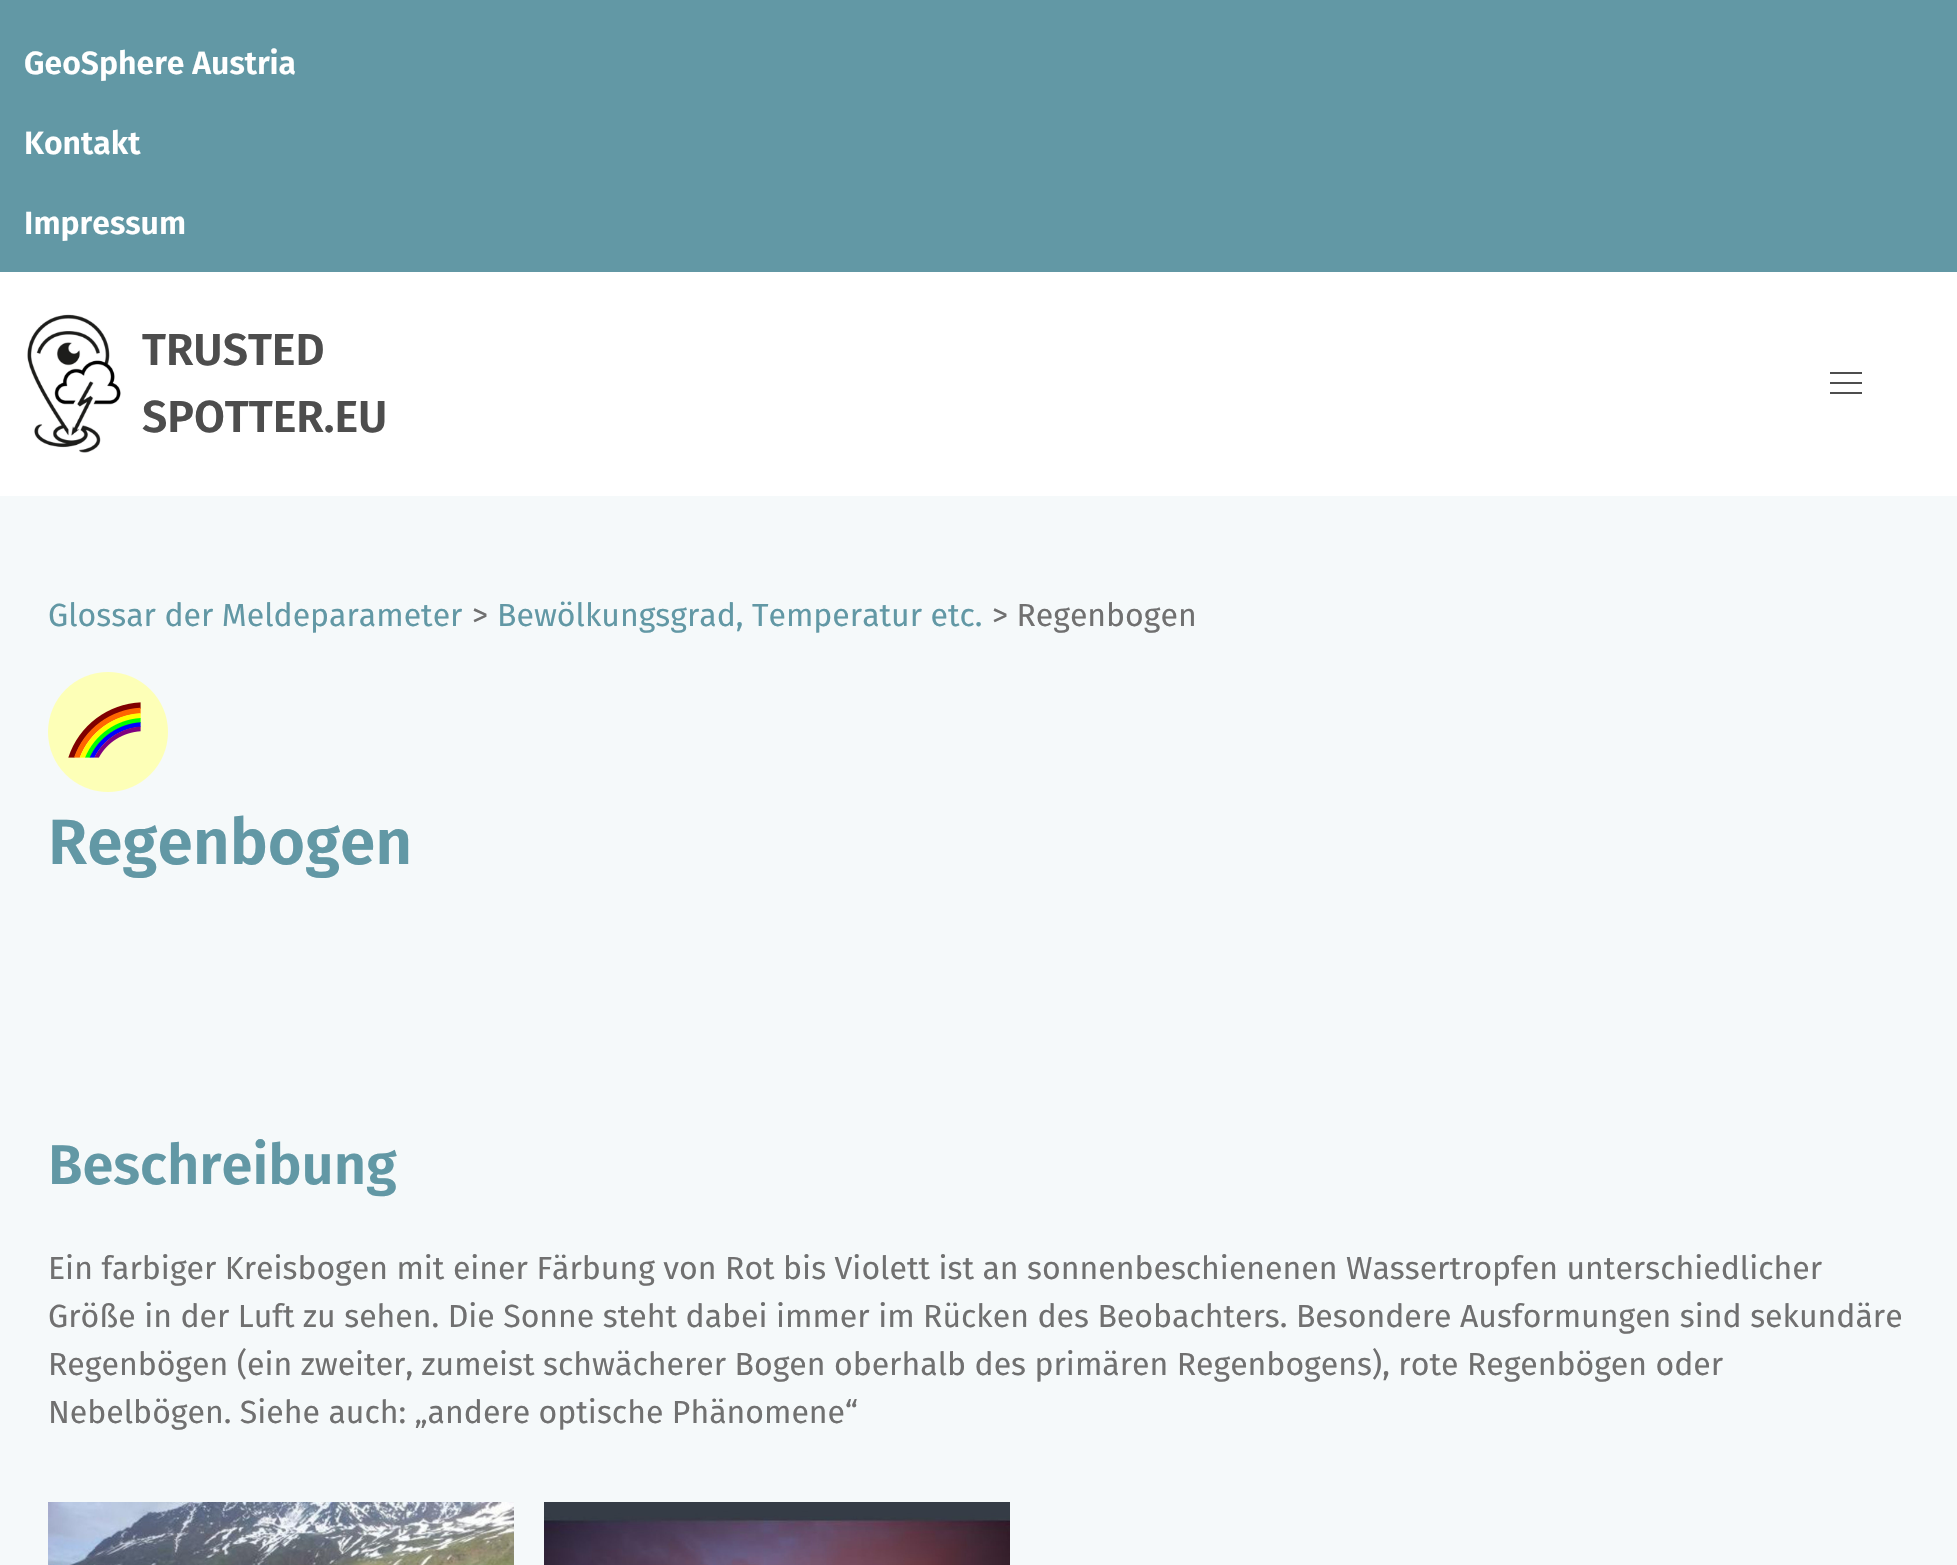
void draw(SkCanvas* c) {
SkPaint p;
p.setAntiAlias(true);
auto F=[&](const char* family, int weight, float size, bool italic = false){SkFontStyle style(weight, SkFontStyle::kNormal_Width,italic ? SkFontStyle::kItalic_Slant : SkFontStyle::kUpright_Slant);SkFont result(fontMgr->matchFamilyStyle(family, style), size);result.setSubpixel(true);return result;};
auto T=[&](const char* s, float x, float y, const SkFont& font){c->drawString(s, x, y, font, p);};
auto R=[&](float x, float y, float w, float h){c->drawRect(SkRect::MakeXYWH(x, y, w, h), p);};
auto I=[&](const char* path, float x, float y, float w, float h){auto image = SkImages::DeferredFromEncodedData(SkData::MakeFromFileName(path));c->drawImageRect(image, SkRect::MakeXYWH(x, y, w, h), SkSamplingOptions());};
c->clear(0xfff5f9fa);
p.setColor(0xff6298a5);
R(0,0,1957,272);
auto f1 = F("Fira Sans",600,32);
p.setColor(0xffffffff);
T("GeoSphere Austria",24,74,f1);
T("Kontakt",24,154,f1);
T("Impressum",24,234,f1);
R(0,272,1957,224);
I("1.png",27,314,94,139);
auto f2 = F("Fira Sans",600,44.75);
p.setColor(0xff4d4d4d);
T("TRUSTED",142,365,f2);
T("SPOTTER.EU",142,432,f2);
R(1830,372,32,2);
R(1830,382,32,2);
R(1830,392,32,2);
auto f3 = F("Fira Sans",400,32);
p.setColor(0xff6298a5);
T("Glossar der Meldeparameter",48,626,f3);
p.setColor(0xff707070);
T(">",472,626,f3);
p.setColor(0xff6298a5);
T("Bewölkungsgrad, Temperatur etc.",497,626,f3);
p.setColor(0xff707070);
T("> Regenbogen",992,626,f3);
I("2.png",48,672,120,120);
auto f4 = F("Fira Sans",600,64);
p.setColor(0xff6298a5);
T("Regenbogen",48,864,f4);
auto f5 = F("Fira Sans",600,56);
T("Beschreibung",48,1184,f5);
p.setColor(0xff707070);
T("Ein farbiger Kreisbogen mit einer Färbung von Rot bis Violett ist an sonnenbeschienenen Wassertropfen unterschiedlicher",48,1279,f3);
T("Größe in der Luft zu sehen. Die Sonne steht dabei immer im Rücken des Beobachters. Besondere Ausformungen sind sekundäre",48,1327,f3);
T("Regenbögen (ein zweiter, zumeist schwächerer Bogen oberhalb des primären Regenbogens), rote Regenbögen oder",48,1375,f3);
T("Nebelbögen. Siehe auch: „andere optische Phänomene“",48,1423,f3);
I("3.png",48,1502,466,63);
I("4.png",544,1502,466,63);
}
